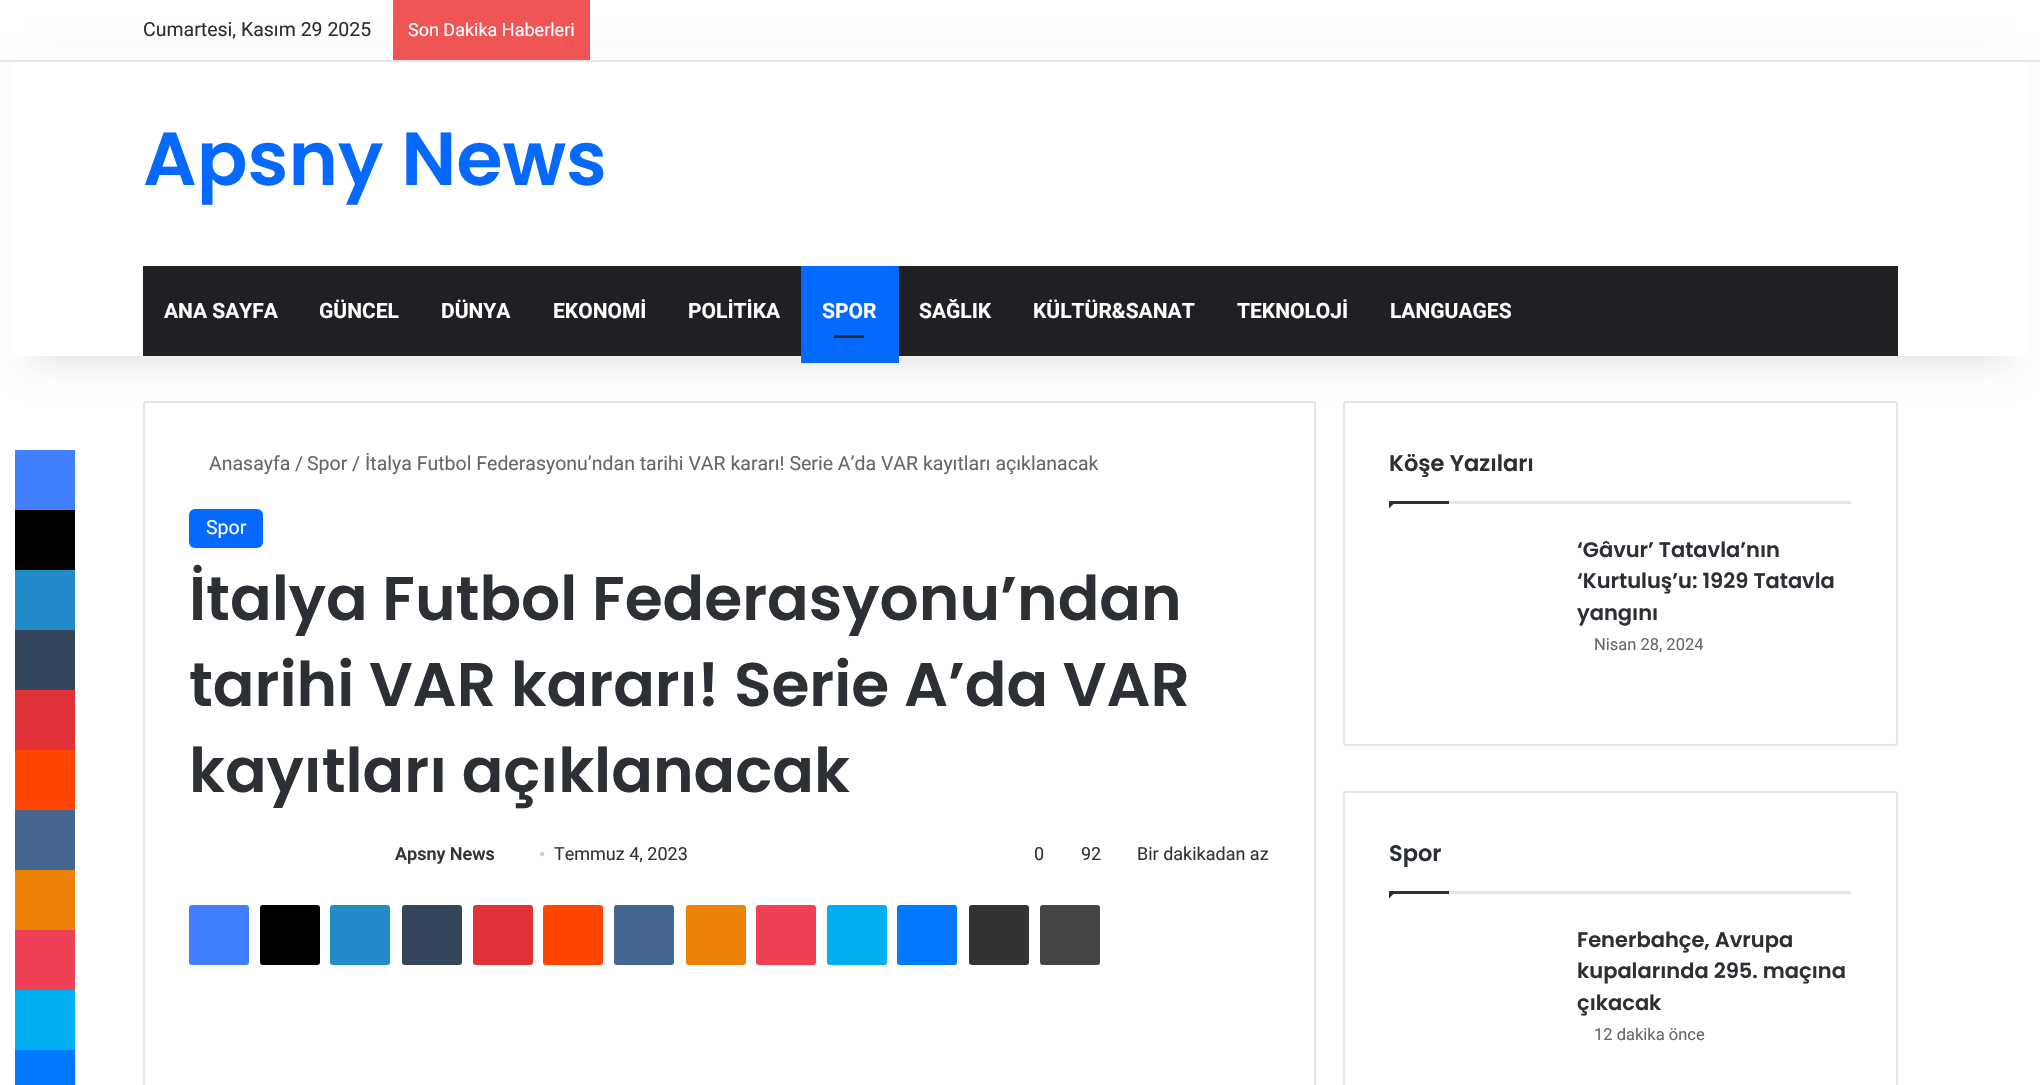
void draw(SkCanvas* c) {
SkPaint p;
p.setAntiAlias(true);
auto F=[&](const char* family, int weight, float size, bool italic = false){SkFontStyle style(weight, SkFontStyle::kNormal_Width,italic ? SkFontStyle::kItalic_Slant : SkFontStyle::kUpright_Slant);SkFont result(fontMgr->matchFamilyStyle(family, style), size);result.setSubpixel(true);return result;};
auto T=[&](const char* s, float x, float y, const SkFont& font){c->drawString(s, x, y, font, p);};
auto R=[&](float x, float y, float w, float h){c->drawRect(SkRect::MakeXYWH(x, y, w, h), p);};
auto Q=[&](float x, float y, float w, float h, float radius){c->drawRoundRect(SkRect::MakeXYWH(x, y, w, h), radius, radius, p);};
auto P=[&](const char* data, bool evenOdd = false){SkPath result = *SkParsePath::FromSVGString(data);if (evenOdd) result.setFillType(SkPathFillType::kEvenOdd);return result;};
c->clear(0xffffffff);
p.setStroke(true);
p.setStrokeWidth(2);
p.setColor(0xffe6e6e6);
c->drawRoundRect(SkRect::MakeXYWH(144,402,1171,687),2,2,p);
c->drawRoundRect(SkRect::MakeXYWH(1344,402,553,343),2,2,p);
p.setStroke(false);
p.setColor(0x1a000000);
p.setMaskFilter(SkMaskFilter::MakeBlur(kNormal_SkBlurStyle, 15));
c->drawRect(SkRect::MakeXYWH(30,68,1980,295),p);
p.setMaskFilter(nullptr);
p.setColor(0xffffffff);
R(11,49,2018,307);
p.setColor(0xffe6e6e6);
R(0,60,2040,2);
auto f1 = F("Roboto",400,19.5);
p.setColor(0xff2c2f34);
T("Cumartesi, Kasım 29 2025",143,36,f1);
p.setColor(0xfff05555);
R(393,0,197,60);
auto f2 = F("Roboto",400,18);
p.setColor(0xffffffff);
T("Son Dakika Haberleri",408,36,f2);
auto f3 = F("Poppins",600,75);
p.setColor(0xff0669ff);
T("Apsny News",143,185,f3);
p.setColor(0xff1f2024);
R(143,266,1755,90);
auto f4 = F("Roboto",700,21);
p.setColor(0xffffffff);
T("ANA SAYFA",164,318,f4);
T("GÜNCEL",319,318,f4);
T("DÜNYA",441,318,f4);
T("EKONOMİ",553,318,f4);
T("POLİTİKA",688,318,f4);
p.setColor(0xff0669ff);
R(801,266,98,97);
p.setColor(0xffffffff);
T("SPOR",822,318,f4);
p.setColor(0xff2c2f34);
R(834,335,30,3);
p.setColor(0xffffffff);
T("SAĞLIK",919,318,f4);
T("KÜLTÜR&SANAT",1033,318,f4);
T("TEKNOLOJİ",1237,318,f4);
T("LANGUAGES",1390,318,f4);
p.setColor(0xff4080ff);
R(15,450,60,60);
p.setColor(0xff000000);
R(15,510,60,60);
p.setColor(0xff238cc8);
R(15,570,60,60);
p.setColor(0xff35465c);
R(15,630,60,60);
p.setColor(0xffe13138);
R(15,690,60,60);
p.setColor(0xffff4500);
R(15,750,60,60);
p.setColor(0xff45668e);
R(15,810,60,60);
p.setColor(0xffee8208);
R(15,870,60,60);
p.setColor(0xffef4056);
R(15,930,60,60);
p.setColor(0xff00aff0);
R(15,990,60,60);
p.setColor(0xff0078ff);
R(15,1050,60,35);
p.setColor(0xff666666);
T("Anasayfa",209,470,f1);
T("/",295,470,f1);
T("Spor",307,470,f1);
T("/",352,470,f1);
T("İtalya Futbol Federasyonu’ndan tarihi VAR kararı! Serie A’da VAR kayıtları açıklanacak",365,470,f1);
p.setColor(0xff0669ff);
Q(189,509,74,39,6);
p.setColor(0xffffffff);
T("Spor",206,534,f1);
auto f5 = F("Poppins",600,61.5);
p.setColor(0xff2c2f34);
T("İtalya Futbol Federasyonu’ndan",189,620,f5);
T("tarihi VAR kararı! Serie A’da VAR",189,706,f5);
T("kayıtları açıklanacak",189,792,f5);
auto f6 = F("Roboto",600,18);
p.setColor(0xff333333);
T("Apsny News",395,860,f6);
auto f7 = F("Liberation Serif",400,18);
p.setColor(0xffcccccc);
T("•",539,860,f7);
p.setColor(0xff333333);
T("Temmuz 4, 2023",554,860,f2);
T("0",1034,860,f2);
T("92",1081,860,f2);
T("Bir dakikadan az",1137,860,f2);
p.setColor(0xff4080ff);
Q(189,905,60,60,3);
p.setColor(0xff000000);
Q(260,905,60,60,3);
p.setColor(0xff238cc8);
Q(330,905,60,60,3);
p.setColor(0xff35465c);
Q(402,905,60,60,3);
p.setColor(0xffe13138);
Q(473,905,60,60,3);
p.setColor(0xffff4500);
Q(543,905,60,60,3);
p.setColor(0xff45668e);
Q(614,905,60,60,3);
p.setColor(0xffee8208);
Q(686,905,60,60,3);
p.setColor(0xffef4056);
Q(756,905,60,60,3);
p.setColor(0xff00aff0);
Q(827,905,60,60,3);
p.setColor(0xff0078ff);
Q(897,905,60,60,3);
p.setColor(0xff333333);
Q(969,905,60,60,3);
p.setColor(0xff444444);
Q(1040,905,60,60,3);
p.setColor(0xffe6e6e6);
R(1449,501,402,3);
auto f8 = F("Poppins",600,22.5);
p.setColor(0xff2c2f34);
T("Köşe Yazıları",1389,471,f8);
c->drawPath(P("M1389 501h7.5l-7.5 7.5z"),p);
R(1389,501,60,3);
auto f9 = F("Poppins",600,21);
T("‘Gâvur’ Tatavla’nın",1577,557,f9);
T("‘Kurtuluş’u: 1929 Tatavla",1577,588,f9);
T("yangını",1577,620,f9);
auto f10 = F("Roboto",400,16.5);
p.setColor(0xff666666);
T("Nisan 28, 2024",1594,650,f10);
p.setStroke(true);
p.setColor(0xffe6e6e6);
c->drawRoundRect(SkRect::MakeXYWH(1344,792,553,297),2,2,p);
p.setStroke(false);
R(1449,891,402,3);
p.setColor(0xff2c2f34);
T("Spor",1389,861,f8);
c->drawPath(P("M1389 891h7.5l-7.5 7.5z"),p);
R(1389,891,60,3);
T("Fenerbahçe, Avrupa",1577,947,f9);
T("kupalarında 295. maçına",1577,978,f9);
T("çıkacak",1577,1010,f9);
p.setColor(0xff666666);
T("12 dakika önce",1594,1040,f10);
}
